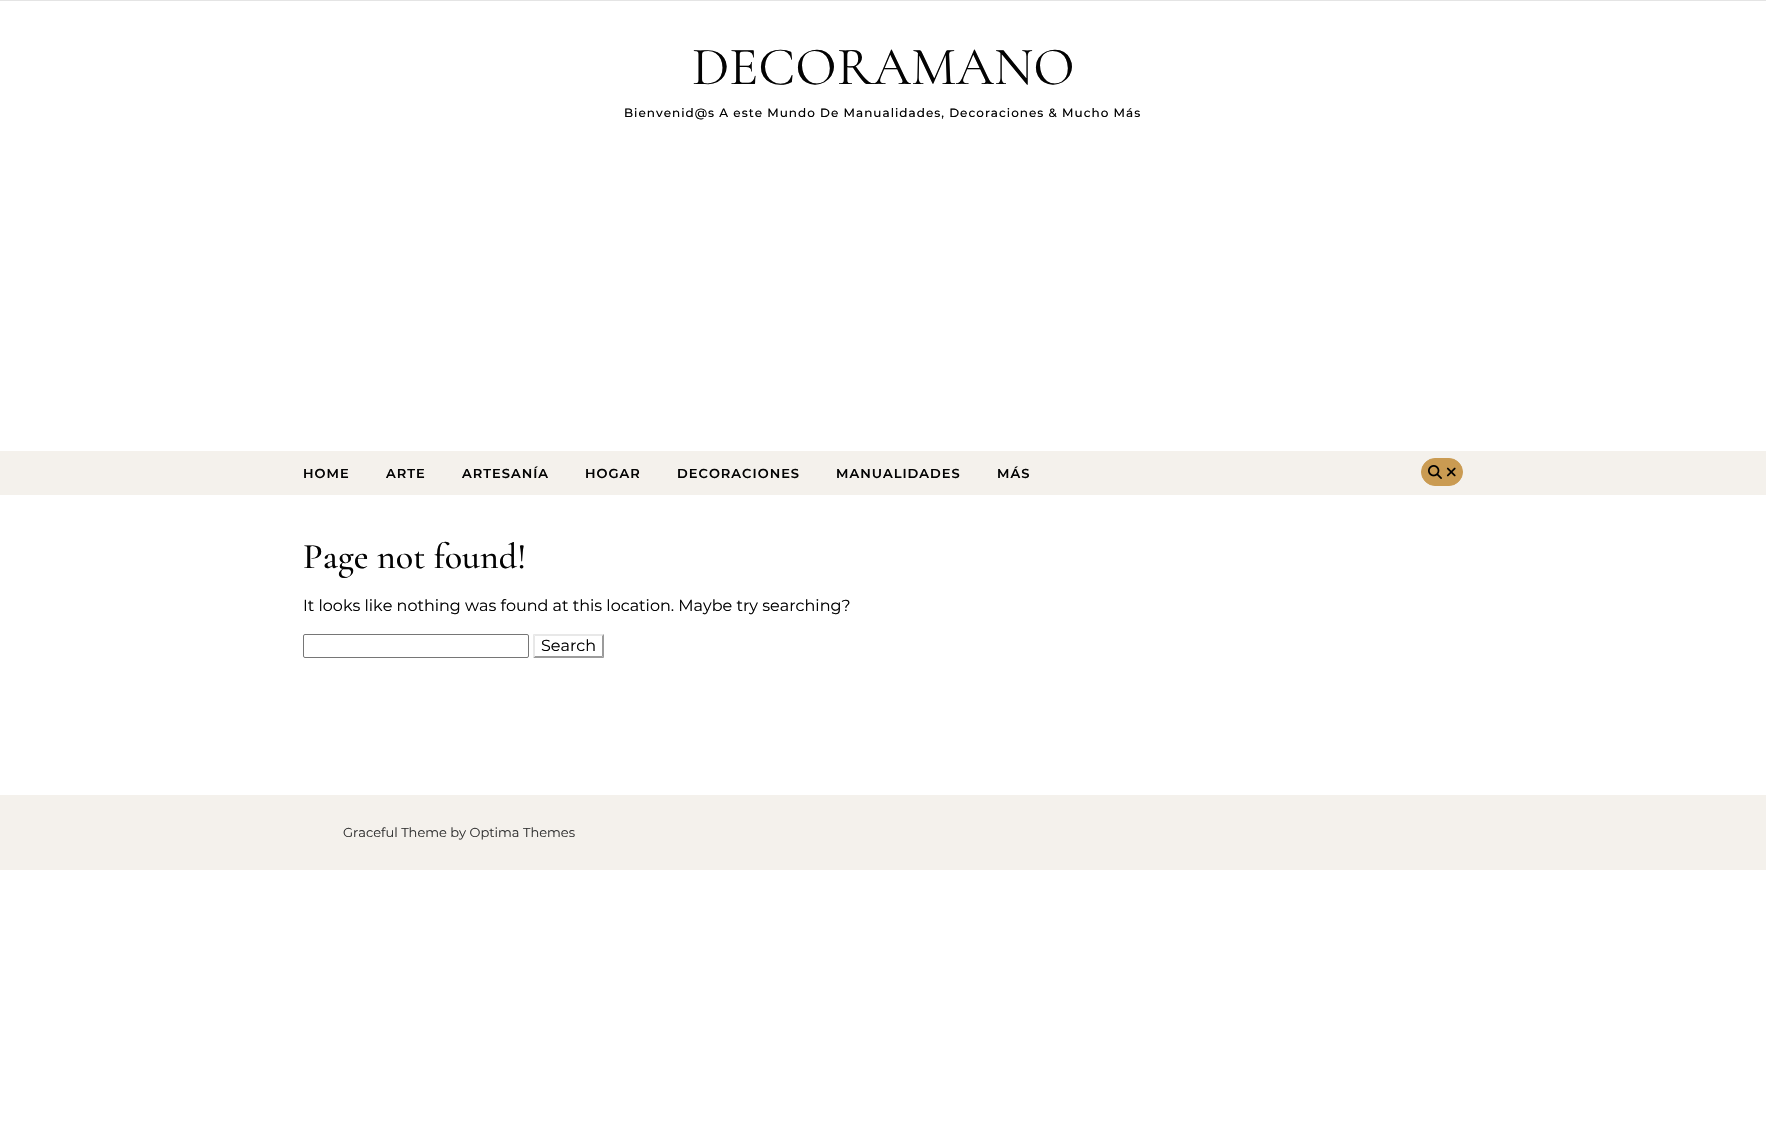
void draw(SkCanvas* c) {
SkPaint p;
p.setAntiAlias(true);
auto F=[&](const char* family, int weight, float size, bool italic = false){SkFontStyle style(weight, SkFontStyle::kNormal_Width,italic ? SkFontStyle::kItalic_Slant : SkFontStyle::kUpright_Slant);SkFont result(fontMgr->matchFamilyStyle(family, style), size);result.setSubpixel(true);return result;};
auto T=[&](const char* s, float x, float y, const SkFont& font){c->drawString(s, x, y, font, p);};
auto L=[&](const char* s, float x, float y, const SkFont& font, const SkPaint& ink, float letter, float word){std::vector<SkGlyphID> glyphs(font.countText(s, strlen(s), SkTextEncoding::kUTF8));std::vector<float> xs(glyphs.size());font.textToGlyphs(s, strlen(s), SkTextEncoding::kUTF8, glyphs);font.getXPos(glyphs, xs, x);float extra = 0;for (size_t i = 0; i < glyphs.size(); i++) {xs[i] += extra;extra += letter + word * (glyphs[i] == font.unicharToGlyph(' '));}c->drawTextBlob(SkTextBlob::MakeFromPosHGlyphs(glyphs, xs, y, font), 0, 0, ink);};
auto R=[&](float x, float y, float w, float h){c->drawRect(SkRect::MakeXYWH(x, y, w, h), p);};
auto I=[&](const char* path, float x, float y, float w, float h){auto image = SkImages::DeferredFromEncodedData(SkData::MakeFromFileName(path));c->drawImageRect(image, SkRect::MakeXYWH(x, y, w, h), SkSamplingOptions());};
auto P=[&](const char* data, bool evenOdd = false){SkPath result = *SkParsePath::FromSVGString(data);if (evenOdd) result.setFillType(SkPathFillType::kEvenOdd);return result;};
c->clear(0xffffffff);
p.setColor(0xffe4e4e4);
R(0,0,1766,1);
auto f1 = F("Cormorant Garamond",400,54);
p.setColor(0xff030303);
T("DECORAMANO",692,84,f1);
auto f2 = F("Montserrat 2",100,12);
L("Bienvenid@s A este Mundo De Manualidades, Decoraciones & Mucho Más",624,117,f2,p,1,0);
p.setColor(0xfff4f1ec);
R(0,451,1766,44);
auto f3 = F("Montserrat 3",100,13);
p.setColor(0xff030303);
L("HOME",303,478,f3,p,1,0);
L("ARTE",386,478,f3,p,1,0);
L("ARTESANÍA",462,478,f3,p,1,0);
L("HOGAR",585,478,f3,p,1,0);
L("DECORACIONES",677,478,f3,p,1,0);
L("MANUALIDADES",836,478,f3,p,1,0);
L("MÁS",997,478,f3,p,1,0);
p.setColor(0xffca9b52);
c->drawRoundRect(SkRect::MakeXYWH(1421.5,458.5,41,27),13.5,13.5,p);
p.setStroke(true);
p.setStrokeWidth(1);
c->drawRoundRect(SkRect::MakeXYWH(1421.5,458.5,41,27),13.5,13.5,p);
I("1.png",1428,465,14,14);
I("2.png",1446,467,10,10);
auto f4 = F("Cormorant Garamond",500,36);
p.setStroke(false);
p.setColor(0xff030303);
T("Page not found!",303,568,f4);
auto f5 = F("Montserrat",100,16);
T("It looks like nothing was found at this location. Maybe try searching?",303,611,f5);
p.setStroke(true);
p.setColor(0xff767676);
c->drawRoundRect(SkRect::MakeXYWH(303.5,634.5,225,23),1.5,1.5,p);
p.setStroke(false);
p.setColor(0xffe8e8e8);
c->drawPath(P("M533 634h71l-2 2h-67z"),p);
p.setColor(0xff9b9b9b);
c->drawPath(P("M604 634v24l-2-2v-20z"),p);
c->drawPath(P("M604 658h-71l2-2h67z"),p);
p.setColor(0xffe8e8e8);
c->drawPath(P("M533 658v-24l2 2v20z"),p);
p.setColor(0xff030303);
T("Search",541,651,f5);
p.setColor(0xfff4f1ec);
R(0,795,1766,75);
auto f6 = F("Montserrat",100,13);
p.setColor(0xff333333);
T("Graceful Theme by Optima Themes",343,837,f6);
}
